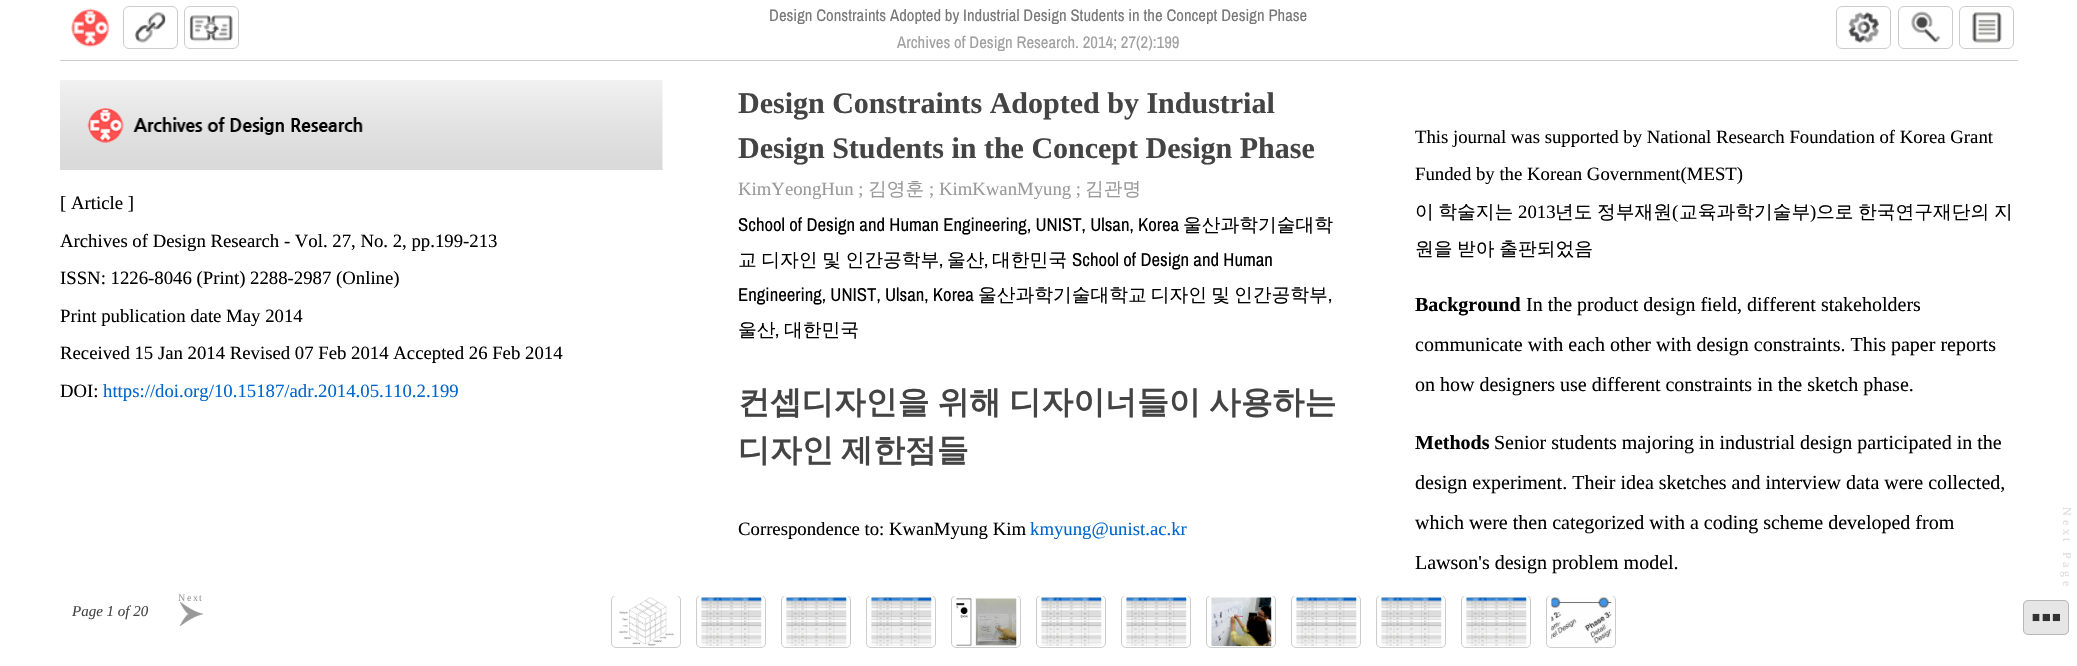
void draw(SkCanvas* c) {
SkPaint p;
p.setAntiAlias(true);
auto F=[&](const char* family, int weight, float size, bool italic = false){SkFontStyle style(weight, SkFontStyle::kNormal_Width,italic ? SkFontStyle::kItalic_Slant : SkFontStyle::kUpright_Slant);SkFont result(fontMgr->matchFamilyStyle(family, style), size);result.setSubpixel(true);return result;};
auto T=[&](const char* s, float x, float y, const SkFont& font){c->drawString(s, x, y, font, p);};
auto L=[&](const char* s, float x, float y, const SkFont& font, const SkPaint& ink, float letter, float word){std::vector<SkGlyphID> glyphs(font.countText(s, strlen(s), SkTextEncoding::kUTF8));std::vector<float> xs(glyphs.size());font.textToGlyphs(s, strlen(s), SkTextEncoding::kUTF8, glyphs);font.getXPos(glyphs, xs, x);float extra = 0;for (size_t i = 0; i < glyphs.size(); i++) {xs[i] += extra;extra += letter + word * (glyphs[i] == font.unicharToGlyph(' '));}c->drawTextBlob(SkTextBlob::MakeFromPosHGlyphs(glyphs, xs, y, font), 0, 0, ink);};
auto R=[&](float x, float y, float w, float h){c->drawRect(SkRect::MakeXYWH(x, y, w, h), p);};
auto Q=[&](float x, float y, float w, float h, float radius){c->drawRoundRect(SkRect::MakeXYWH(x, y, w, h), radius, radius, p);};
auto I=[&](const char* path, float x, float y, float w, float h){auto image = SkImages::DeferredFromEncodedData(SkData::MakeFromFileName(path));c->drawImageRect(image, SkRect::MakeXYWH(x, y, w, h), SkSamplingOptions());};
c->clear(0xffffffff);
p.setColor(0xffcccccc);
R(60,60,1958,1);
I("1.png",71,8,38,39);
p.setStroke(true);
p.setStrokeWidth(1);
c->drawRoundRect(SkRect::MakeXYWH(123.5,6.5,54,42),5.5,5.5,p);
I("2.png",134,12,32,31);
c->drawRoundRect(SkRect::MakeXYWH(184.5,6.5,54,42),5.5,5.5,p);
I("3.png",189,15,44,27);
auto f1 = F("Archivo Narrow",400,16.7);
p.setStroke(false);
p.setColor(0xff777777);
T("Design Constraints Adopted by Industrial Design Students in the Concept Design Phase",769,21,f1);
p.setColor(0xffa0a0a0);
T("Archives of Design Research. 2014; 27(2):199",897,48,f1);
p.setStroke(true);
p.setColor(0xffcccccc);
c->drawRoundRect(SkRect::MakeXYWH(1836.5,6.5,54,42),5.5,5.5,p);
I("4.png",1848,12,31,31);
c->drawRoundRect(SkRect::MakeXYWH(1898.5,6.5,54,42),5.5,5.5,p);
I("5.png",1911,11,30,32);
c->drawRoundRect(SkRect::MakeXYWH(1959.5,6.5,54,42),5.5,5.5,p);
I("6.png",1972,12,30,31);
auto f2 = F("Liberation Serif",400,12);
p.setStroke(false);
p.setColor(0xffdddddd);
c->save();
c->rotate(90,2063,507);
T("N",2063,507,f2);
c->restore();
c->save();
c->rotate(90,2063,520);
T("e",2063,520,f2);
c->restore();
c->save();
c->rotate(90,2063,529);
T("x",2063,529,f2);
c->restore();
c->save();
c->rotate(90,2063,538);
T("t",2063,538,f2);
c->restore();
c->save();
c->rotate(90,2063,552);
T("P",2063,552,f2);
c->restore();
c->save();
c->rotate(90,2063,562);
T("a",2063,562,f2);
c->restore();
c->save();
c->rotate(90,2063,571);
T("g",2063,571,f2);
c->restore();
c->save();
c->rotate(90,2063,581);
T("e",2063,581,f2);
c->restore();
auto f3 = F("Liberation Serif",400,10);
p.setColor(0xff999999);
T("N",178,601,f3);
T("e",187,601,f3);
T("x",193,601,f3);
T("t",199,601,f3);
I("7.png",179,602,25,24);
auto f4 = F("Liberation Serif",400,15,true);
p.setColor(0xff444444);
T("Page 1 of 20",72,616,f4);
I("8.png",618,597,56,49);
c->save();
c->clipRect(SkRect::MakeXYWH(264,596,1700,70));
p.setStroke(true);
p.setColor(0xffcccccc);
c->drawRoundRect(SkRect::MakeXYWH(611.5,595.5,69,52),4.5,4.5,p);
c->restore();
I("9.png",701,597,61,49);
c->save();
c->clipRect(SkRect::MakeXYWH(264,596,1700,70));
c->drawRoundRect(SkRect::MakeXYWH(696.5,595.5,69,52),4.5,4.5,p);
c->restore();
I("9.png",786,597,61,49);
c->save();
c->clipRect(SkRect::MakeXYWH(264,596,1700,70));
c->drawRoundRect(SkRect::MakeXYWH(781.5,595.5,69,52),4.5,4.5,p);
c->restore();
I("9.png",871,597,61,49);
c->save();
c->clipRect(SkRect::MakeXYWH(264,596,1700,70));
c->drawRoundRect(SkRect::MakeXYWH(866.5,595.5,69,52),4.5,4.5,p);
c->restore();
I("10.png",956,597,61,49);
c->save();
c->clipRect(SkRect::MakeXYWH(264,596,1700,70));
c->drawRoundRect(SkRect::MakeXYWH(951.5,595.5,69,52),4.5,4.5,p);
c->restore();
I("9.png",1041,597,61,49);
c->save();
c->clipRect(SkRect::MakeXYWH(264,596,1700,70));
c->drawRoundRect(SkRect::MakeXYWH(1036.5,595.5,69,52),4.5,4.5,p);
c->restore();
I("9.png",1126,597,61,49);
c->save();
c->clipRect(SkRect::MakeXYWH(264,596,1700,70));
c->drawRoundRect(SkRect::MakeXYWH(1121.5,595.5,69,52),4.5,4.5,p);
c->restore();
I("11.png",1211,597,61,50);
c->save();
c->clipRect(SkRect::MakeXYWH(264,596,1700,70));
c->drawRoundRect(SkRect::MakeXYWH(1206.5,595.5,69,52),4.5,4.5,p);
c->restore();
I("9.png",1296,597,61,49);
c->save();
c->clipRect(SkRect::MakeXYWH(264,596,1700,70));
c->drawRoundRect(SkRect::MakeXYWH(1291.5,595.5,69,52),4.5,4.5,p);
c->restore();
I("9.png",1381,597,61,49);
c->save();
c->clipRect(SkRect::MakeXYWH(264,596,1700,70));
c->drawRoundRect(SkRect::MakeXYWH(1376.5,595.5,69,52),4.5,4.5,p);
c->restore();
I("9.png",1466,597,61,49);
c->save();
c->clipRect(SkRect::MakeXYWH(264,596,1700,70));
c->drawRoundRect(SkRect::MakeXYWH(1461.5,595.5,69,52),4.5,4.5,p);
c->restore();
I("12.png",1551,597,61,47);
c->save();
c->clipRect(SkRect::MakeXYWH(264,596,1700,70));
c->drawRoundRect(SkRect::MakeXYWH(1546.5,595.5,69,52),4.5,4.5,p);
c->restore();
p.setStroke(false);
p.setColor(0xffe6e6e6);
Q(2023,600,46,35,5);
p.setStroke(true);
p.setColor(0x33000000);
c->drawRoundRect(SkRect::MakeXYWH(2023.5,600.5,45,34),4.5,4.5,p);
I("13.png",2032,613,28,9);
I("14.png",60,80,603,90);
auto f5 = F("Liberation Serif",700,30);
p.setStroke(false);
p.setColor(0xff444444);
T("Design Constraints Adopted by Industrial",738,113,f5);
T("Design Students in the Concept Design Phase",738,158,f5);
auto f6 = F("Liberation Serif",400,18.75);
p.setColor(0xff000000);
T("This journal was supported by National Research Foundation of Korea Grant",1415,143,f6);
T("Funded by the Korean Government(MEST)",1415,180,f6);
auto f7 = F("WenQuanYi Zen Hei",500,18.75);
L("이 학술지는",1415,218,f7,p,0,-1);
T("2013",1518,218,f6);
L("년도 정부재원",1555,218,f7,p,0,-1);
T("(",1672,218,f6);
T("교육과학기술부",1679,218,f7);
T(")",1810,218,f6);
L("으로 한국연구재단의 지",1816,218,f7,p,0,-1);
L("원을 받아 출판되었음",1415,255,f7,p,0,-1);
p.setColor(0xff999999);
T("KimYeongHun ;",738,195,f6);
T("김영훈",868,195,f7);
T("; KimKwanMyung ;",929,195,f6);
T("김관명",1085,195,f7);
p.setColor(0xff000000);
T("[ Article ]",60,209,f6);
auto f8 = F("Archivo Narrow",400,18.75);
T("School of Design and Human Engineering, UNIST, Ulsan, Korea",738,231,f8);
T("울산과학기술대학",1183,231,f7);
T("Archives of Design Research - Vol. 27, No. 2, pp.199-213",60,247,f6);
L("교 디자인 및 인간공학부",738,266,f7,p,0,-1);
T(",",939,266,f8);
T("울산",947,266,f7);
T(",",984,266,f8);
T("대한민국",992,266,f7);
T("School of Design and Human",1072,266,f8);
T("ISSN: 1226-8046 (Print) 2288-2987 (Online)",60,284,f6);
T("Engineering, UNIST, Ulsan, Korea",738,301,f8);
L("울산과학기술대학교 디자인 및 인간공학부",978,301,f7,p,0,-1.5);
T(",",1328,301,f8);
T("Print publication date May 2014",60,322,f6);
T("울산",738,336,f7);
T(",",775,336,f8);
T("대한민국",784,336,f7);
T("Received 15 Jan 2014 Revised 07 Feb 2014 Accepted 26 Feb 2014",60,359,f6);
T("DOI:",60,397,f6);
p.setColor(0xff0066cc);
T("https://doi.org/10.15187/adr.2014.05.110.2.199",103,397,f6);
auto f9 = F("WenQuanYi Zen Hei",700,31.9);
p.setColor(0xff444444);
L("컨셉디자인을 위해 디자이너들이 사용하는",738,413,f9,p,0,-1.5);
T("디자인",738,461,f9);
T("제한점들",841,461,f9);
p.setColor(0xff000000);
T("Correspondence to: KwanMyung Kim",738,535,f6);
p.setColor(0xff0066cc);
T("kmyung@unist.ac.kr",1030,535,f6);
auto f10 = F("Liberation Serif",700,20);
p.setColor(0xff000000);
T("Background",1415,311,f10);
auto f11 = F("Liberation Serif",400,20);
T("In the product design field, different stakeholders",1526,311,f11);
T("communicate with each other with design constraints. This paper reports",1415,351,f11);
T("on how designers use different constraints in the sketch phase.",1415,391,f11);
T("Methods",1415,449,f10);
T("Senior students majoring in industrial design participated in the",1494,449,f11);
T("design experiment. Their idea sketches and interview data were collected,",1415,489,f11);
T("which were then categorized with a coding scheme developed from",1415,529,f11);
T("Lawson's design problem model.",1415,569,f11);
}
